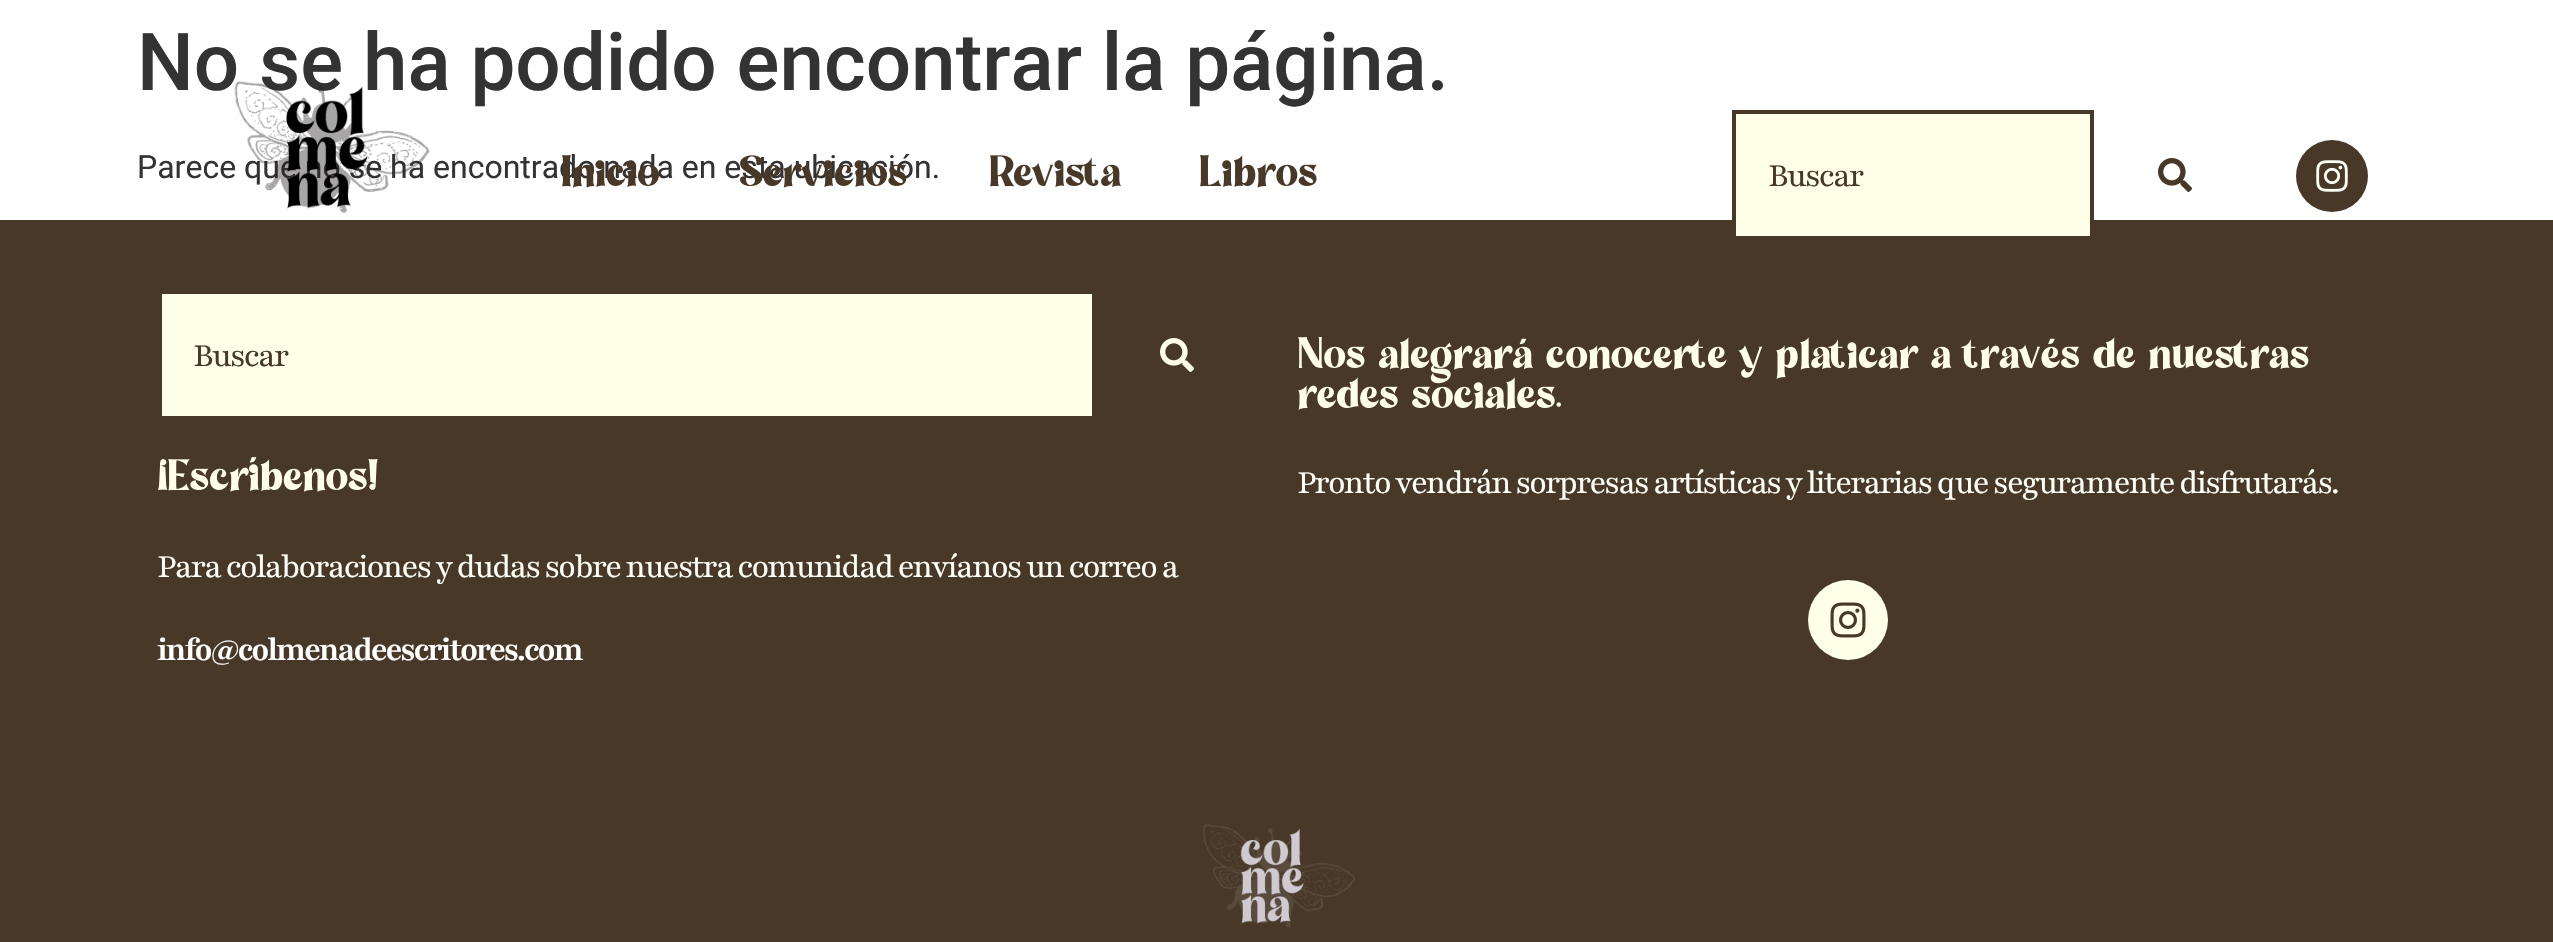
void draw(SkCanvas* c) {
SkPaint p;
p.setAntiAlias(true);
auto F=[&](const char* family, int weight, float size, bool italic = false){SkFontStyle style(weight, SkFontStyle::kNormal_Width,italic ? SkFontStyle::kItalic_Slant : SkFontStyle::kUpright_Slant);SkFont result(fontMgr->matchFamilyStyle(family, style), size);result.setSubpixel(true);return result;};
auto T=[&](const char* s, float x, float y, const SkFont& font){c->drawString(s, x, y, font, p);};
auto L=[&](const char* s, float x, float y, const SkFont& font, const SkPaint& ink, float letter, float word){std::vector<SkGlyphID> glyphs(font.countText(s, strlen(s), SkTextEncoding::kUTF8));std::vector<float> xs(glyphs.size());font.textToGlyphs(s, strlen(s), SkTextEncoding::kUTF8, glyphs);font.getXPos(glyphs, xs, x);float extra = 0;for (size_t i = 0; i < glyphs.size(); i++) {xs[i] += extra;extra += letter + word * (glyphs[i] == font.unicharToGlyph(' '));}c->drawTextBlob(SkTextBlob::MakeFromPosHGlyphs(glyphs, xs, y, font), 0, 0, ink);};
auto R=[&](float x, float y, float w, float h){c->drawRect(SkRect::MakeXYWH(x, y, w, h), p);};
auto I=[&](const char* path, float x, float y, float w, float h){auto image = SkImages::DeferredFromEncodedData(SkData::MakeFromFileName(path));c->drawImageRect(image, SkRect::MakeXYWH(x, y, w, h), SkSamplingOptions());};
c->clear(0xffffffff);
auto f1 = F("Roboto",500,80);
p.setColor(0xff333333);
T("No se ha podido encontrar la página.",137,90,f1);
auto f2 = F("Roboto",400,32);
T("Parece que no se ha encontrado nada en esta ubicación.",137,178,f2);
I("1.png",234,81,196,132);
I("2.png",562,155,97,33);
I("3.png",740,155,167,33);
I("4.png",990,155,131,32);
I("5.png",1200,155,117,33);
p.setColor(0xff473827);
R(0,220,2553,722);
p.setColor(0xffffffe8);
c->drawRect(SkRect::MakeXYWH(1734,112,358,126),p);
p.setStroke(true);
p.setStrokeWidth(4);
p.setColor(0xff473827);
c->drawRect(SkRect::MakeXYWH(1734,112,358,126),p);
auto f3 = F("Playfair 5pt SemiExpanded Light",400,36);
p.setStroke(false);
L("Buscar",1768,186,f3,p,-2.2,0);
I("6.png",2158,158,34,34);
c->drawCircle(2332,176,36,p);
I("7.png",2316,160,32,32);
p.setColor(0xffffffe8);
R(162,294,930,122);
p.setColor(0xff473827);
L("Buscar",193,366,f3,p,-2.2,0);
I("8.png",1160,338,34,34);
I("9.png",158,457,220,35);
p.setColor(0xfffffff7);
L("Para colaboraciones y dudas sobre nuestra comunidad envíanos un correo a",157,577,f3,p,-2.2,0);
auto f4 = F("Playfair 5pt SemiExpanded Light",700,36);
p.setColor(0xffffffff);
L("info@colmenadeescritores.com",157,660,f4,p,-2.2,0);
I("10.png",1298,337,1011,47);
I("11.png",1298,377,263,33);
p.setColor(0xfffffff7);
L("Pronto vendrán sorpresas artísticas y literarias que seguramente disfrutarás.",1297,493,f3,p,-2.2,0);
p.setColor(0xffffffe8);
c->drawCircle(1848,620,40,p);
I("12.png",1830,602,36,36);
I("13.png",1203,824,152,104);
}
